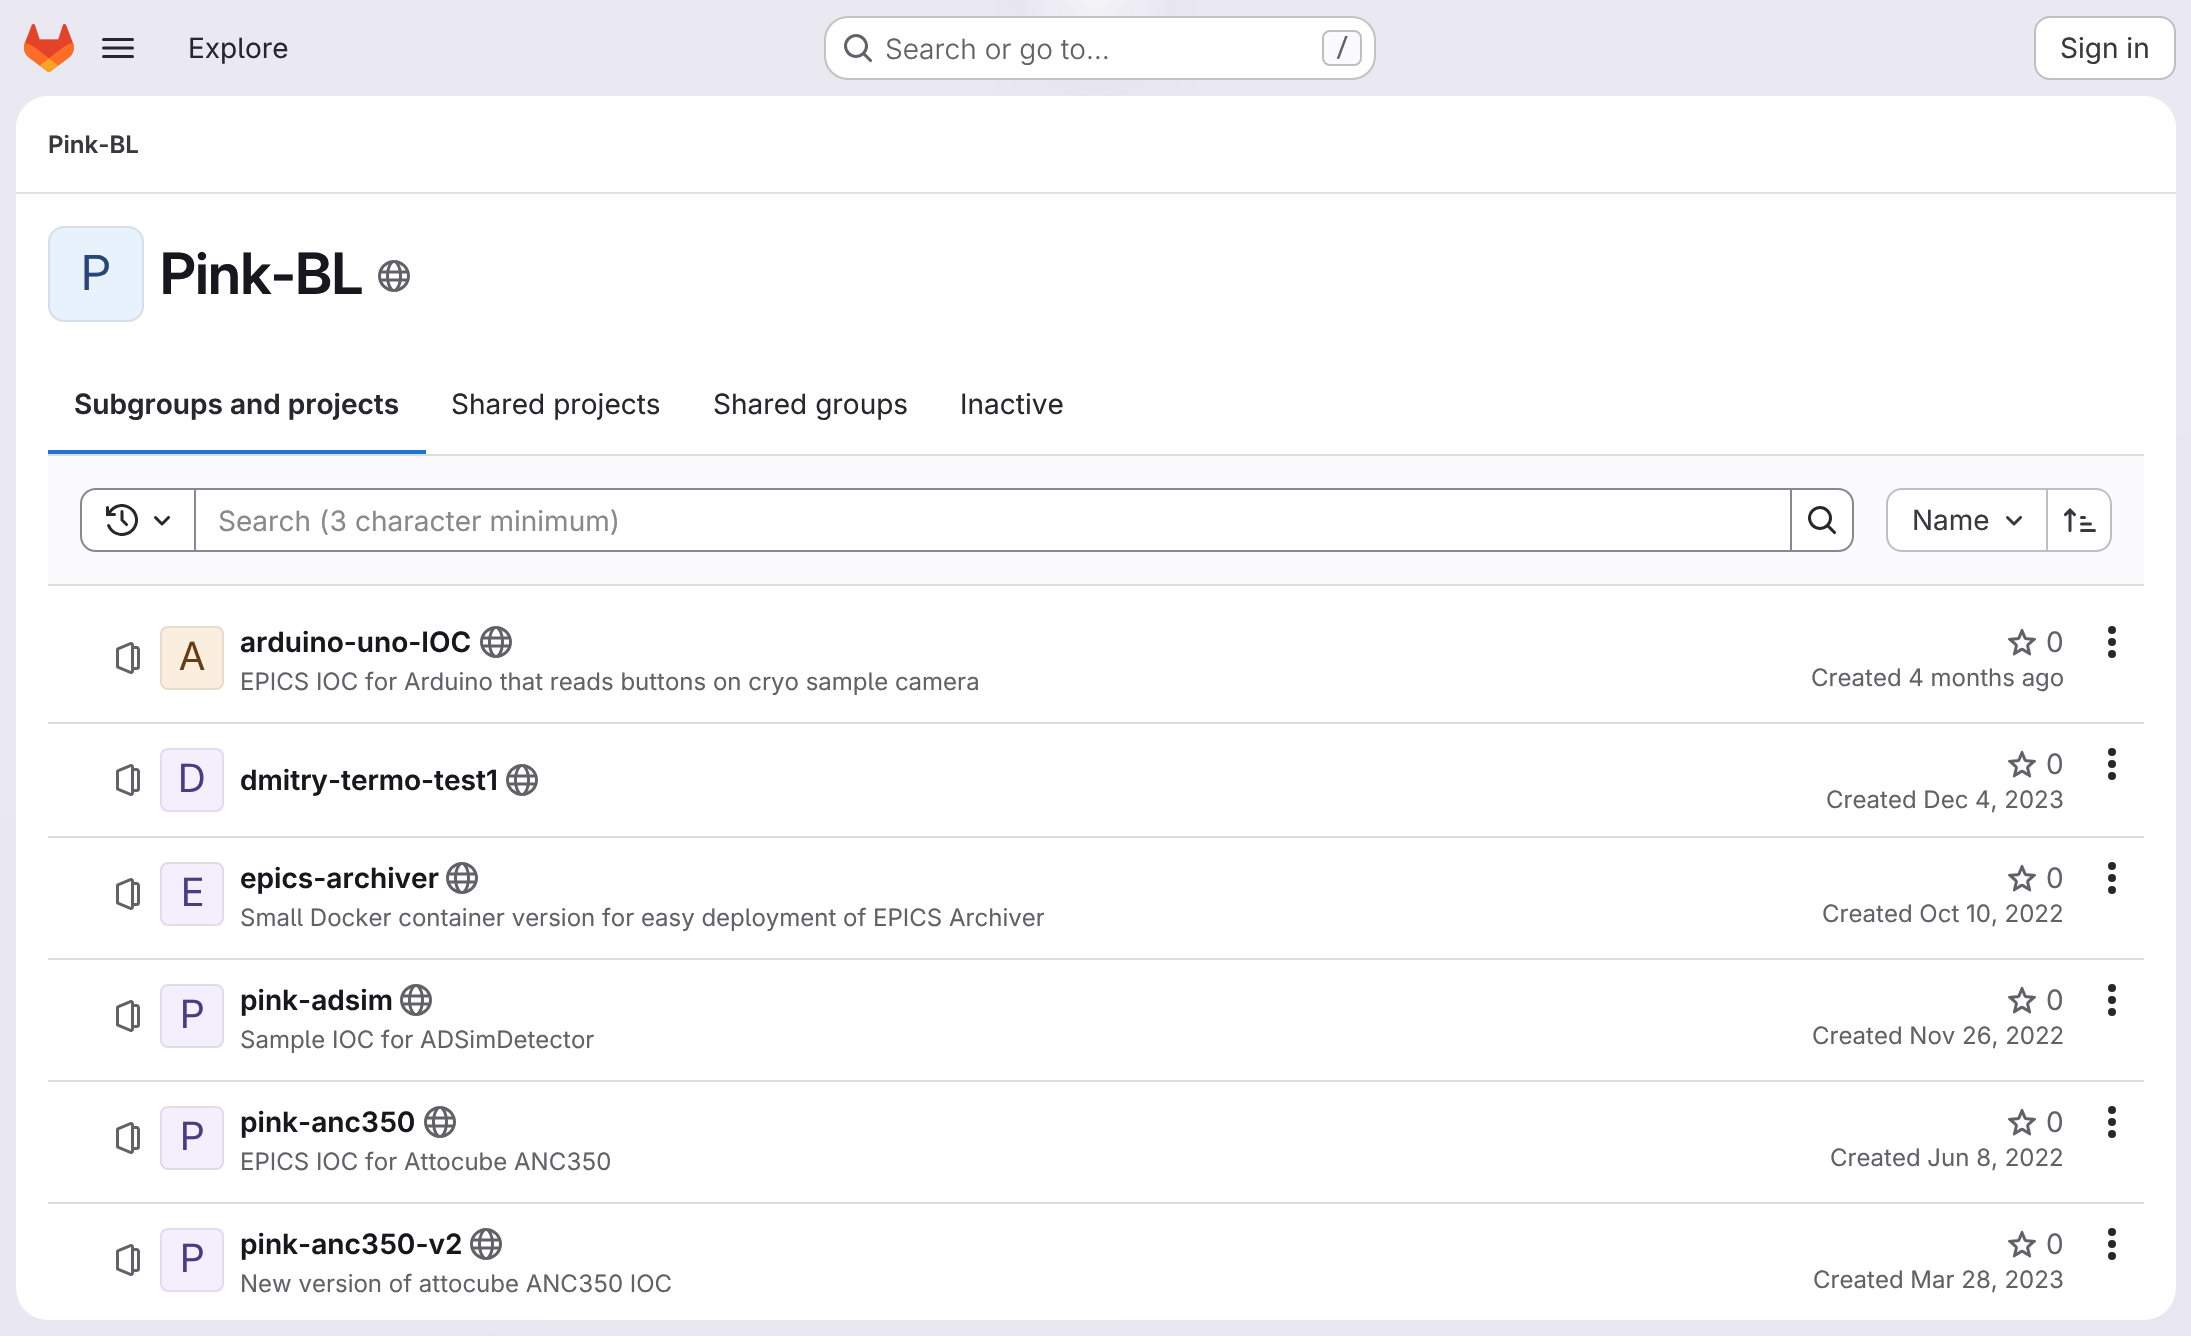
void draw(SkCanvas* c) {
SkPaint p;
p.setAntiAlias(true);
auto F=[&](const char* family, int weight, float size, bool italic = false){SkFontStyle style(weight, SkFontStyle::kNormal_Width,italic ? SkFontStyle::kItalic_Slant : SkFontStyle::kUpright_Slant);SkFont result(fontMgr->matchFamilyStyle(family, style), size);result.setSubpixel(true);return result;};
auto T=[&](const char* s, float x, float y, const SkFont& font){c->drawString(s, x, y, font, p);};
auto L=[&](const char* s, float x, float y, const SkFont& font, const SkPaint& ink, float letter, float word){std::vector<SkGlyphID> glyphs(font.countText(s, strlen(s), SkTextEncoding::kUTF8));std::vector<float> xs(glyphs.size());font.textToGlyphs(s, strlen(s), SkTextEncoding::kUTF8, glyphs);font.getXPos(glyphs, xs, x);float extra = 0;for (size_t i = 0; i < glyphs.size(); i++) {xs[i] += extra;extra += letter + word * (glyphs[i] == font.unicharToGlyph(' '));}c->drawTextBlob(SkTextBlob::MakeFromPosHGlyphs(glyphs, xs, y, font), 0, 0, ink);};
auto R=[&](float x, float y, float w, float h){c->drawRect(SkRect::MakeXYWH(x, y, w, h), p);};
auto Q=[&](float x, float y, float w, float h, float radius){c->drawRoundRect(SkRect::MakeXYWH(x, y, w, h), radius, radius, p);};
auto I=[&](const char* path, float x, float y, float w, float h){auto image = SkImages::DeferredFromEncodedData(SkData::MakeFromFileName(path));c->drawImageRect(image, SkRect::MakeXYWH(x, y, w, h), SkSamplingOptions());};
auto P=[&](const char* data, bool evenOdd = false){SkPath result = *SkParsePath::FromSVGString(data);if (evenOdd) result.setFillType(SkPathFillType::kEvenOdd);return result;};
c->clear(0xffffffff);
{
const SkColor colors[] = {0xffe8e6f0,0xffeae9f2};
const float stops[] = {0,.7};
const SkPoint ends[] = {{1243,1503}, {949,-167}};
p.setShader(SkGradientShader::MakeLinear(ends, colors, stops, 2, SkTileMode::kClamp));
p.setAlpha(255);
}
R(0,0,2191,1336);
{
const SkColor colors[] = {0xffe4e2ed,0x00e4e2ed};
const float stops[] = {0,.13};
SkMatrix m = SkMatrix::Translate(1096,0).preScale(1096,1336);
p.setShader(SkGradientShader::MakeRadial({0, 0}, 1, colors, stops, 2, SkTileMode::kClamp, 0, &m));
p.setAlpha(255);
}
R(993,0,206,96);
{
const SkColor colors[] = {0xffe4e2ec,0x00e4e2ec};
const float stops[] = {0,.09};
SkMatrix m = SkMatrix::Translate(1096,0).preScale(1096,1336);
p.setShader(SkGradientShader::MakeRadial({0, 0}, 1, colors, stops, 2, SkTileMode::kClamp, 0, &m));
p.setAlpha(255);
}
R(1057,3,78,46);
{
const SkColor colors[] = {0x99ffffff,0x00ffffff};
const float stops[] = {0,.05};
p.setShader(SkGradientShader::MakeRadial({1096,0}, 1728, colors, stops, 2, SkTileMode::kClamp));
p.setAlpha(255);
}
R(1024,0,144,73);
I("1.png",24,24,50,48);
I("2.png",102,38,32,20);
auto f1 = F("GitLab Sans",400,28);
p.setShader(nullptr);
p.setColor(0xff28272d);
T("Explore",188,58,f1);
p.setColor(0xffffffff);
Q(824,16,552,64,24);
p.setStroke(true);
p.setStrokeWidth(2);
p.setColor(0x3d050506);
c->drawRoundRect(SkRect::MakeXYWH(825,17,550,62),23,23,p);
I("3.png",844,34,29,29);
auto f2 = F("GitLab Sans",300,28);
p.setStroke(false);
p.setColor(0xff626168);
T("Search or go to…",885,59,f2);
p.setColor(0xfffbfafd);
c->drawRoundRect(SkRect::MakeXYWH(1323,31,38,34),7,7,p);
p.setStroke(true);
p.setColor(0xffbfbfc3);
c->drawRoundRect(SkRect::MakeXYWH(1323,31,38,34),7,7,p);
auto f3 = F("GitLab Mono",500,24);
p.setStroke(false);
p.setColor(0xff626168);
T("/",1335,56,f3);
p.setColor(0xffffffff);
c->drawRoundRect(SkRect::MakeXYWH(2035,17,140,62),15,15,p);
p.setStroke(true);
p.setColor(0xffbfbfc3);
c->drawRoundRect(SkRect::MakeXYWH(2035,17,140,62),15,15,p);
p.setStroke(false);
p.setColor(0xff3a383f);
T("Sign in",2060,58,f1);
p.setColor(0xffffffff);
Q(16,96,2160,1224,32);
c->drawPath(P("M48 96h2096c17.5 0 32 14.5 32 32v66h-2160v-66c0-17.5 14.5-32 32-32z"),p);
p.setColor(0xffe1dfec);
R(16,192,2160,2);
auto f4 = F("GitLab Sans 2",600,24);
p.setColor(0xff3a383f);
T("Pink-BL",48,153,f4);
p.setColor(0xffe7f2fc);
Q(48,226,96,96,16);
p.setStroke(true);
p.setColor(0x14050506);
c->drawRoundRect(SkRect::MakeXYWH(49,227,94,94),15,15,p);
auto f5 = F("GitLab Sans 2",400,48);
p.setStroke(false);
p.setColor(0xff284779);
T("P",81,290,f5);
auto f6 = F("GitLab Sans",600,57);
p.setColor(0xff18171d);
L("Pink-BL",160,294,f6,p,-.5,0);
I("4.png",378,260,32,32);
p.setColor(0xffdcdcde);
R(48,584,2096,2);
auto f7 = F("GitLab Sans 2",600,28);
p.setColor(0xff28272d);
T("Subgroups and projects",74,414,f7);
p.setColor(0xff1f75cb);
R(48,450,378,4);
p.setColor(0xff28272d);
T("Shared projects",451,414,f1);
T("Shared groups",713,414,f1);
T("Inactive",960,414,f1);
p.setColor(0xfffbfafd);
R(48,456,2096,128);
p.setColor(0xffdcdcde);
R(48,454,2096,2);
p.setColor(0xffffffff);
c->drawRect(SkRect::MakeXYWH(195,489,1596,62),p);
p.setStroke(true);
p.setColor(0xff89888d);
c->drawRect(SkRect::MakeXYWH(195,489,1596,62),p);
p.setStroke(false);
p.setColor(0xffffffff);
c->drawPath(P("M96 489h99v62h-99c-8.5 0-15-6.5-15-15v-32c0-8.5 6.5-15 15-15z"),p);
p.setStroke(true);
p.setColor(0xff89888d);
c->drawPath(P("M96 489h99v62h-99c-8.5 0-15-6.5-15-15v-32c0-8.5 6.5-15 15-15z"),p);
I("5.png",106,504,32,32);
I("6.png",154,515,17,11);
p.setStroke(false);
T("Search (3 character minimum)",218,531,f1);
p.setColor(0xffffffff);
c->drawPath(P("M1791 489h47c8.5 0 15 6.5 15 15v32c0 8.5-6.5 15-15 15h-47z"),p);
p.setStroke(true);
p.setColor(0xff89888d);
c->drawPath(P("M1791 489h47c8.5 0 15 6.5 15 15v32c0 8.5-6.5 15-15 15h-47z"),p);
I("7.png",1808,506,29,29);
p.setStroke(false);
p.setColor(0xffffffff);
c->drawPath(P("M1902 490h144v60h-144c-7.5 0-14-6.5-14-14v-32c0-7.5 6.5-14 14-14z"),p);
p.setColor(0xffbfbfc3);
c->drawPath(P("M1902 488h144v64h-144c-9 0-16-7-16-16v-32c0-9 7-16 16-16zm0 2h144v60h-144c-8 0-14-6-14-14v-32c0-8 6-14 14-14z",true),p);
p.setColor(0xff3a383f);
T("Name",1912,530,f1);
I("8.png",2006,515,17,11);
p.setColor(0xffffffff);
c->drawPath(P("M2048 490h48c7.5 0 14 6.5 14 14v32c0 7.5-6.5 14-14 14h-48z"),p);
p.setColor(0xffbfbfc3);
c->drawPath(P("M2048 488h48c9 0 16 7 16 16v32c0 9-7 16-16 16h-48zm0 2h48c8 0 14 6 14 14v32c0 8-6 14-14 14h-48z",true),p);
R(2046,488,2,64);
I("9.png",2064,508,32,24);
p.setColor(0xffdcdcde);
R(48,722,2096,2);
I("10.png",116,642,24,32);
p.setColor(0xfffaefde);
Q(160,626,64,64,8);
p.setStroke(true);
p.setColor(0x14050506);
c->drawRoundRect(SkRect::MakeXYWH(161,627,62,62),7,7,p);
auto f8 = F("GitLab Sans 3",400,39);
p.setStroke(false);
p.setColor(0xff693c14);
T("A",179,670,f8);
p.setColor(0xff18171d);
T("arduino-uno-IOC",240,652,f7);
I("11.png",480,626,32,32);
auto f9 = F("GitLab Sans",400,24);
p.setColor(0xff626168);
T("EPICS IOC for Arduino that reads buttons on cryo sample camera",240,690,f9);
I("12.png",2008,628,28,28);
T("0",2046,652,f1);
T("Created 4 months ago",1811,686,f9);
I("13.png",2108,626,8,32);
p.setColor(0xffdcdcde);
R(48,836,2096,2);
I("10.png",116,764,24,32);
p.setColor(0xfff3effc);
Q(160,748,64,64,8);
p.setStroke(true);
p.setColor(0x14050506);
c->drawRoundRect(SkRect::MakeXYWH(161,749,62,62),7,7,p);
p.setStroke(false);
p.setColor(0xff493c83);
T("D",178,792,f8);
p.setColor(0xff18171d);
T("dmitry-termo-test1",240,790,f7);
I("14.png",506,764,32,32);
I("15.png",2008,750,28,28);
p.setColor(0xff626168);
T("0",2046,774,f1);
T("Created Dec 4, 2023",1826,808,f9);
I("16.png",2108,748,8,32);
p.setColor(0xffdcdcde);
R(48,958,2096,2);
I("10.png",116,878,24,32);
p.setColor(0xfff3effc);
Q(160,862,64,64,8);
p.setStroke(true);
p.setColor(0x14050506);
c->drawRoundRect(SkRect::MakeXYWH(161,863,62,62),7,7,p);
p.setStroke(false);
p.setColor(0xff493c83);
T("E",181,906,f8);
p.setColor(0xff18171d);
T("epics-archiver",240,888,f7);
I("4.png",446,862,32,32);
c->save();
c->clipRect(SkRect::MakeXYWH(240,902,804,32));
p.setColor(0xff626168);
T("Small Docker container version for easy deployment of EPICS Archiver",240,926,f9);
c->restore();
I("12.png",2008,864,28,28);
T("0",2046,888,f1);
T("Created Oct 10, 2022",1822,922,f9);
I("13.png",2108,862,8,32);
p.setColor(0xffdcdcde);
R(48,1080,2096,2);
I("10.png",116,1000,24,32);
p.setColor(0xfff3effc);
Q(160,984,64,64,8);
p.setStroke(true);
p.setColor(0x14050506);
c->drawRoundRect(SkRect::MakeXYWH(161,985,62,62),7,7,p);
p.setStroke(false);
p.setColor(0xff493c83);
T("P",180,1028,f8);
p.setColor(0xff18171d);
T("pink-adsim",240,1010,f7);
I("4.png",400,984,32,32);
p.setColor(0xff626168);
T("Sample IOC for ADSimDetector",240,1048,f9);
I("12.png",2008,986,28,28);
T("0",2046,1010,f1);
T("Created Nov 26, 2022",1812,1044,f9);
I("13.png",2108,984,8,32);
p.setColor(0xffdcdcde);
R(48,1202,2096,2);
I("10.png",116,1122,24,32);
p.setColor(0xfff3effc);
Q(160,1106,64,64,8);
p.setStroke(true);
p.setColor(0x14050506);
c->drawRoundRect(SkRect::MakeXYWH(161,1107,62,62),7,7,p);
p.setStroke(false);
p.setColor(0xff493c83);
T("P",180,1150,f8);
p.setColor(0xff18171d);
T("pink-anc350",240,1132,f7);
I("4.png",424,1106,32,32);
p.setColor(0xff626168);
T("EPICS IOC for Attocube ANC350",240,1170,f9);
I("12.png",2008,1108,28,28);
T("0",2046,1132,f1);
T("Created Jun 8, 2022",1830,1166,f9);
I("13.png",2108,1106,8,32);
I("17.png",116,1244,24,32);
p.setColor(0xfff3effc);
Q(160,1228,64,64,8);
p.setStroke(true);
p.setColor(0x14050506);
c->drawRoundRect(SkRect::MakeXYWH(161,1229,62,62),7,7,p);
p.setStroke(false);
p.setColor(0xff493c83);
T("P",180,1272,f8);
p.setColor(0xff18171d);
T("pink-anc350-v2",240,1254,f7);
I("4.png",470,1228,32,32);
p.setColor(0xff626168);
T("New version of attocube ANC350 IOC",240,1292,f9);
I("12.png",2008,1230,28,28);
T("0",2046,1254,f1);
T("Created Mar 28, 2023",1813,1288,f9);
I("13.png",2108,1228,8,32);
}
